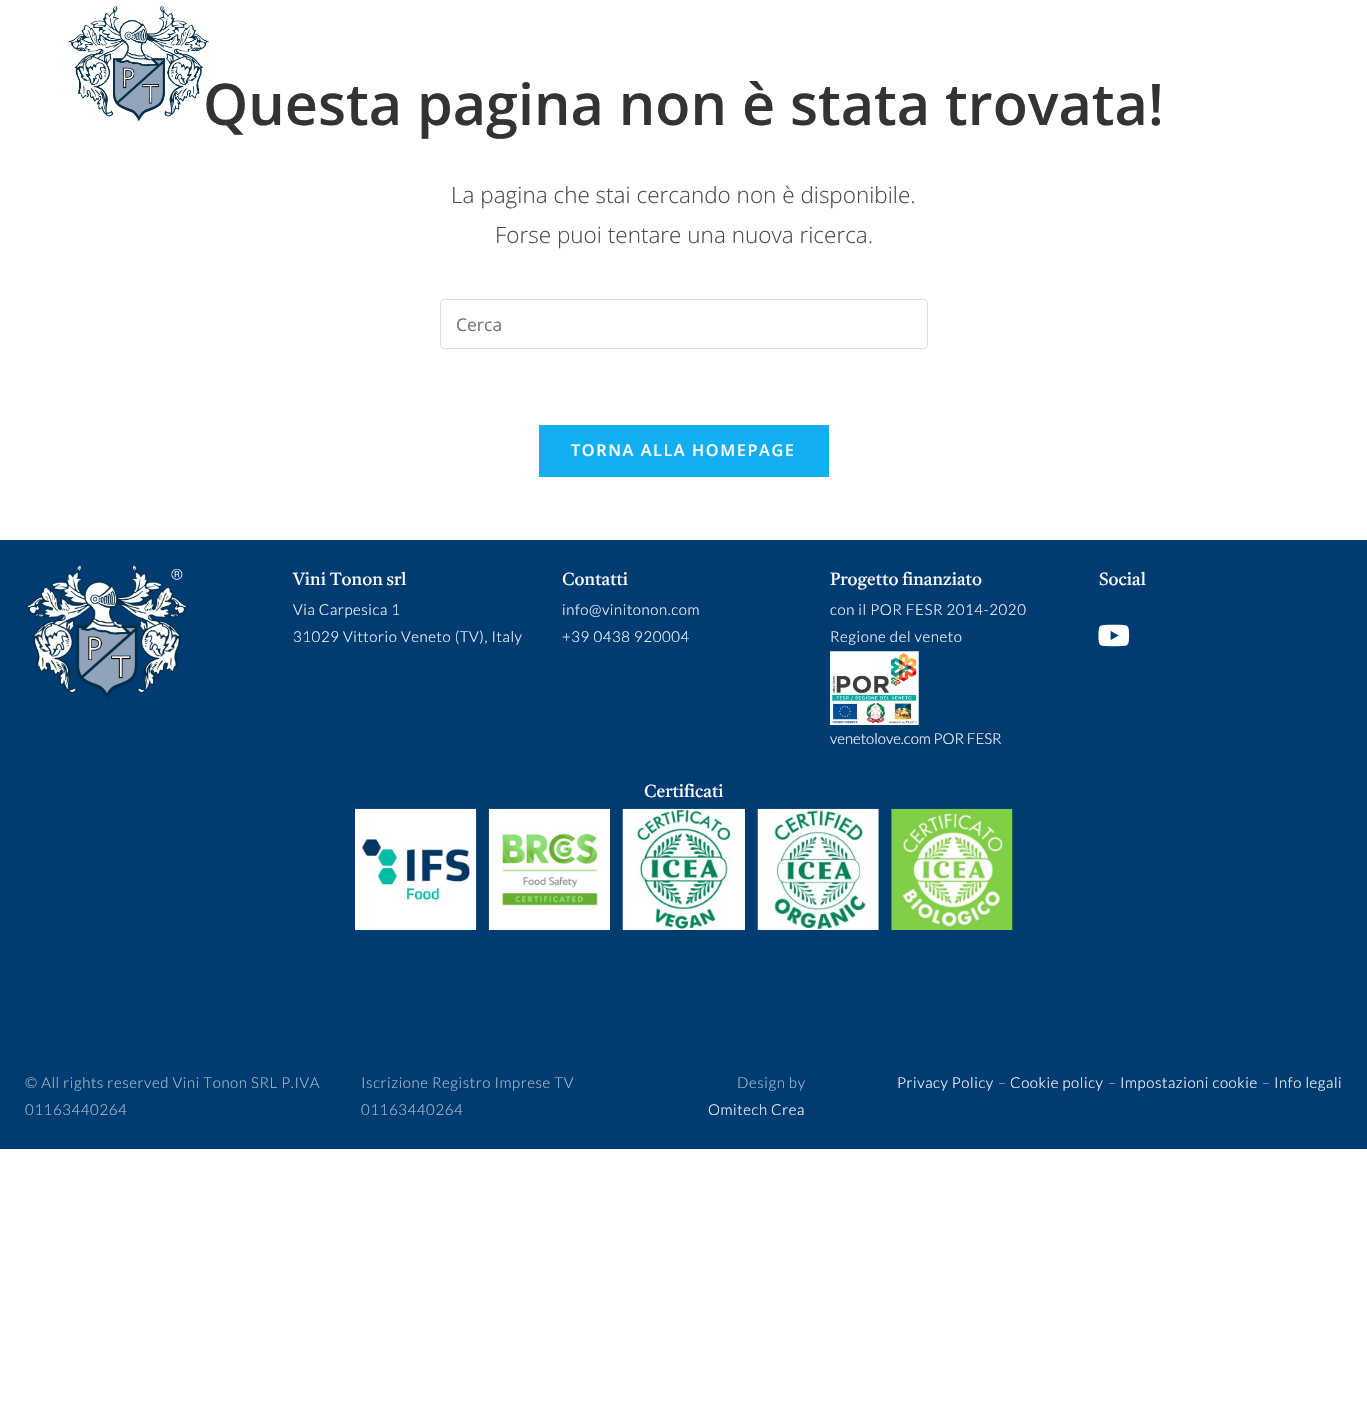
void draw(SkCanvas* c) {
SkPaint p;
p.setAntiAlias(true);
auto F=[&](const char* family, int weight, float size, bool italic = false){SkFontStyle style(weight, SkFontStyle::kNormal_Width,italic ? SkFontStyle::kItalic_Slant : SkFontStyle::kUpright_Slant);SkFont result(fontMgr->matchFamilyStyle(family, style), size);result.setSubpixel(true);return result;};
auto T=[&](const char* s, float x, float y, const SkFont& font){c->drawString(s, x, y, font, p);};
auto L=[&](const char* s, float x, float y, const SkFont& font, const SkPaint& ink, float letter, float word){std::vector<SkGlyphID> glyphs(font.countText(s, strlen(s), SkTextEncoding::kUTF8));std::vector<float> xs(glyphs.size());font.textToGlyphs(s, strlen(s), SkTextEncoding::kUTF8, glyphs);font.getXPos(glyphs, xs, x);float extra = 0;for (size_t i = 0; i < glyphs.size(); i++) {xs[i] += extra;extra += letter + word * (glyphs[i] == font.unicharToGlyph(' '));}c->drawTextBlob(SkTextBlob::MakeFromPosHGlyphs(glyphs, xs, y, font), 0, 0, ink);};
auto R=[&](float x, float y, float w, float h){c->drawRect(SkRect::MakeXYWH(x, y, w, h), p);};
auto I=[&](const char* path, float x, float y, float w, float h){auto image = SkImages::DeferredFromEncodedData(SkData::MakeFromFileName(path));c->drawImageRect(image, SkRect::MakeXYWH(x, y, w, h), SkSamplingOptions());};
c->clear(0xffffffff);
auto f1 = F("Open Sans",600,57.5);
p.setColor(0xff333333);
T("Questa pagina non è stata trovata!",203,125,f1);
I("1.png",68,6,141,116);
auto f2 = F("Open Sans",300,22.5);
p.setColor(0xff4a4a4a);
T("La pagina che stai cercando non è disponibile.",451,203,f2);
T("Forse puoi tentare una nuova ricerca.",495,243,f2);
p.setStroke(true);
p.setStrokeWidth(1);
p.setColor(0xffdddddd);
c->drawRoundRect(SkRect::MakeXYWH(440.5,299.5,487,49),3.5,3.5,p);
auto f3 = F("Open Sans",400,17.5);
p.setStroke(false);
p.setColor(0xff757575);
T("Cerca",456,331,f3);
p.setColor(0xff13aff0);
R(539,425,290,52);
auto f4 = F("Open Sans",600,16.25);
p.setColor(0xffffffff);
L("TORNA ALLA HOMEPAGE",571,456,f4,p,1.6,0);
p.setColor(0xff003b71);
R(0,540,1367,609);
I("2.png",25,565,164,134);
auto f5 = F("Castoro",400,17.5);
p.setColor(0xffffffff);
T("Vini Tonon srl",293,585,f5);
auto f6 = F("Lato",300,15);
L("Via Carpesica 1",293,615,f6,p,.6,0);
L("31029 Vittorio Veneto (TV), Italy",293,642,f6,p,.6,0);
T("Contatti",562,585,f5);
L("info@vinitonon.com",562,615,f6,p,.6,0);
L("+39 0438 920004",562,642,f6,p,.6,0);
T("Progetto finanziato",830,585,f5);
L("con il POR FESR 2014-2020",830,615,f6,p,.6,0);
L("Regione del veneto",830,642,f6,p,.6,0);
I("3.png",830,651,89,74);
T("venetolove.com POR FESR",830,744,f6);
T("Social",1099,585,f5);
I("4.png",1098,624,32,23);
T("Certificati",644,797,f5);
I("5.png",355,808,122,122);
I("6.png",488,808,122,122);
I("7.png",622,808,123,122);
I("8.png",757,808,122,122);
I("9.png",891,808,122,122);
p.setColor(0xffadc0d2);
L("© All rights reserved Vini Tonon SRL P.IVA",25,1088,f6,p,.6,0);
L("01163440264",25,1115,f6,p,.6,0);
L("Iscrizione Registro Imprese TV",361,1088,f6,p,.6,0);
L("01163440264",361,1115,f6,p,.6,0);
L("Design by",737,1088,f6,p,.6,0);
p.setColor(0xffffffff);
L("Omitech Crea",708,1115,f6,p,.6,0);
L("Privacy Policy",897,1088,f6,p,.6,0);
p.setColor(0xffadc0d2);
L("–",998,1088,f6,p,.6,0);
p.setColor(0xffffffff);
L("Cookie policy",1010,1088,f6,p,.6,0);
p.setColor(0xffadc0d2);
L("–",1108,1088,f6,p,.6,0);
p.setColor(0xffffffff);
L("Impostazioni cookie",1120,1088,f6,p,.6,0);
p.setColor(0xffadc0d2);
L("–",1262,1088,f6,p,.6,0);
p.setColor(0xffffffff);
L("Info legali",1274,1088,f6,p,.6,0);
}
